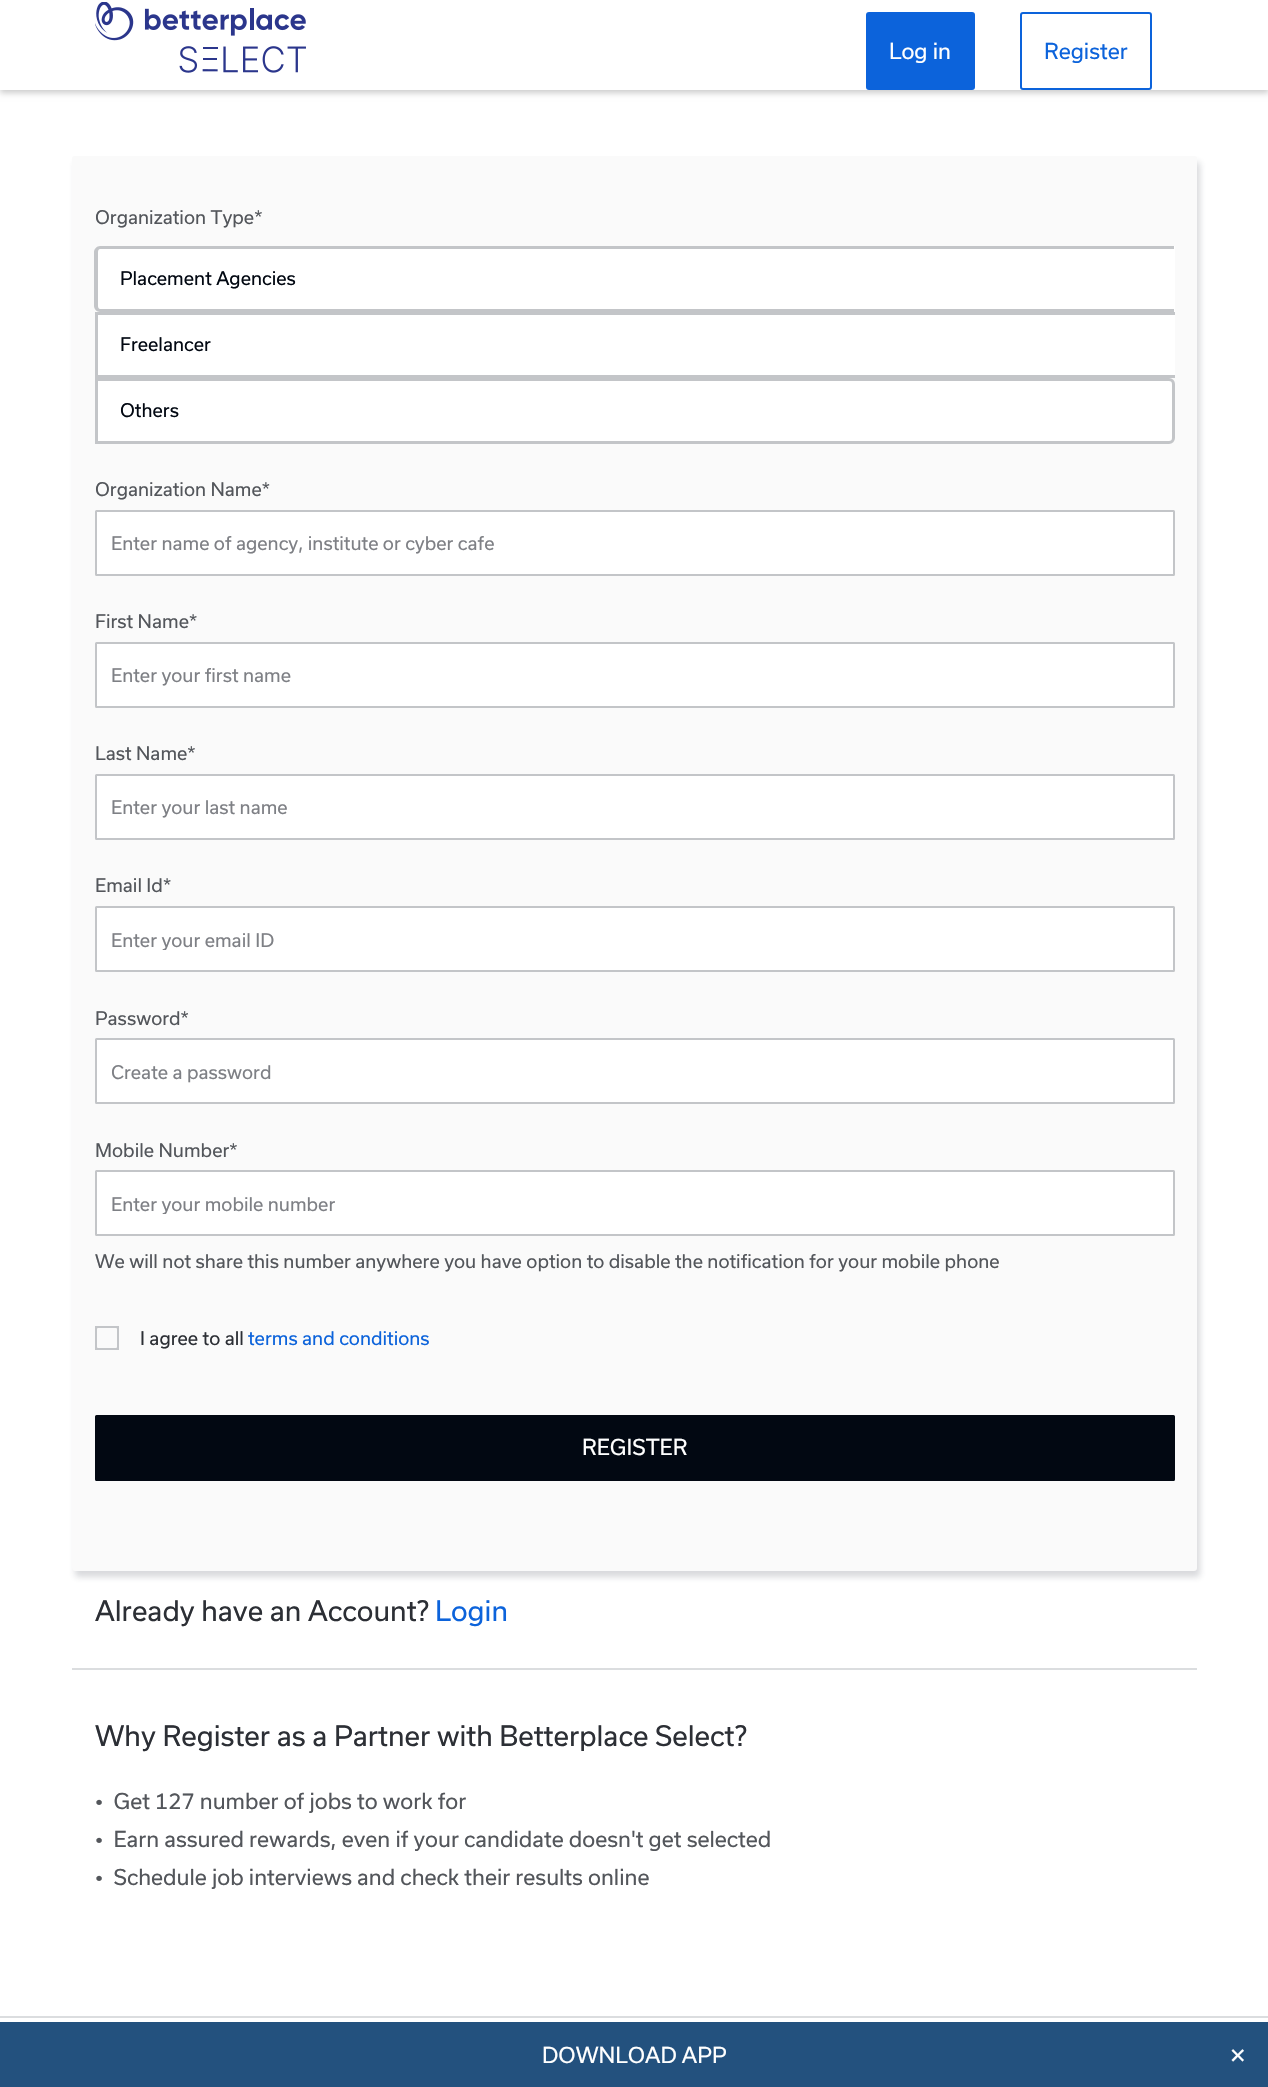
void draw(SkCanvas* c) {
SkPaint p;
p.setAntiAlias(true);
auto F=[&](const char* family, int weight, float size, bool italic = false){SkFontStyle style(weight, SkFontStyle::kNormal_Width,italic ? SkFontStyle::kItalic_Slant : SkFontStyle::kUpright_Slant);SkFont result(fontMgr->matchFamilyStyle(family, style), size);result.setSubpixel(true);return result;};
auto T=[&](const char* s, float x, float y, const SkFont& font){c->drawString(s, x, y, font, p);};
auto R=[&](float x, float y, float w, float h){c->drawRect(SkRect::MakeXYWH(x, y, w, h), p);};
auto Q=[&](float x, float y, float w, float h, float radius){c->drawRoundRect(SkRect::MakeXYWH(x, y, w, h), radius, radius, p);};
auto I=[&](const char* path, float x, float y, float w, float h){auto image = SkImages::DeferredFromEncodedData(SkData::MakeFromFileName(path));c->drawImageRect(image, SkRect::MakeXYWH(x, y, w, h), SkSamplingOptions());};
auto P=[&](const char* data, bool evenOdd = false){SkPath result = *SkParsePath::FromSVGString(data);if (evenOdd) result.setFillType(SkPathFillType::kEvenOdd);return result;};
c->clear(0xffffffff);
p.setColor(0x33000000);
p.setMaskFilter(SkMaskFilter::MakeBlur(kNormal_SkBlurStyle, 3));
c->drawRect(SkRect::MakeXYWH(0,3,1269,90),p);
p.setMaskFilter(nullptr);
p.setColor(0xffffffff);
R(0,0,1268,90);
I("1.png",95,2,211,71);
p.setColor(0xff0c63db);
Q(866,12,109,78,3);
auto f1 = F("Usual",400,21);
p.setColor(0xffffffff);
T("Log in",889,59,f1);
p.setStroke(true);
p.setStrokeWidth(2);
p.setColor(0xff0c63db);
c->drawRoundRect(SkRect::MakeXYWH(1021,13,130,76),2,2,p);
p.setStroke(false);
T("Register",1044,59,f1);
p.setColor(0x333d4250);
p.setMaskFilter(SkMaskFilter::MakeBlur(kNormal_SkBlurStyle, 3));
c->drawRoundRect(SkRect::MakeXYWH(75,162,1125,1415),3,3,p);
p.setMaskFilter(nullptr);
p.setColor(0xfffafafa);
Q(72,156,1125,1415,3);
auto f2 = F("Usual",400,18);
p.setColor(0xff53565b);
T("Organization Type*",95,224,f2);
p.setColor(0xffffffff);
c->drawPath(P("M101 246h1074v66h-1074c-3.5 0-6-2.5-6-6v-54c0-3.5 2.5-6 6-6z"),p);
p.setColor(0xffc3c5c8);
c->drawPath(P("M100 246h1074v66h-1074c-3 0-6-3-6-6v-54c0-3 3-6 6-6zm0 3h1074v60h-1074c-1 0-2-1-2-3v-54c0-2 1-3 2-3z",true),p);
p.setColor(0xff020812);
T("Placement Agencies",120,285,f2);
p.setColor(0xffffffff);
R(98,315,1077,60);
p.setColor(0xffc3c5c8);
R(95,312,1080,3);
R(95,375,1080,3);
R(95,312,3,66);
p.setColor(0xff020812);
T("Freelancer",120,351,f2);
p.setColor(0xffffffff);
c->drawPath(P("M96.5 379.5h1072.5c2.5 0 4.5 2 4.5 4.5v54c0 2.5-2 4.5-4.5 4.5h-1072.5z"),p);
p.setStroke(true);
p.setStrokeWidth(3);
p.setColor(0xffc3c5c8);
c->drawPath(P("M96.5 379.5h1072.5c2.5 0 4.5 2 4.5 4.5v54c0 2.5-2 4.5-4.5 4.5h-1072.5z"),p);
p.setStroke(false);
p.setColor(0xff020812);
T("Others",120,417,f2);
p.setColor(0xff53565b);
T("Organization Name*",95,496,f2);
p.setColor(0xffffffff);
c->drawRoundRect(SkRect::MakeXYWH(96,511,1078,64),.5,.5,p);
p.setStroke(true);
p.setStrokeWidth(2);
p.setColor(0xffc3c5c8);
c->drawRoundRect(SkRect::MakeXYWH(96,511,1078,64),.5,.5,p);
p.setStroke(false);
p.setColor(0xff7e8085);
T("Enter name of agency, institute or cyber cafe",111,550,f2);
p.setColor(0xff53565b);
T("First Name*",95,628,f2);
p.setColor(0xffffffff);
c->drawRoundRect(SkRect::MakeXYWH(96,643,1078,64),.5,.5,p);
p.setStroke(true);
p.setColor(0xffc3c5c8);
c->drawRoundRect(SkRect::MakeXYWH(96,643,1078,64),.5,.5,p);
p.setStroke(false);
p.setColor(0xff7e8085);
T("Enter your first name",111,682,f2);
p.setColor(0xff53565b);
T("Last Name*",95,760,f2);
p.setColor(0xffffffff);
c->drawRoundRect(SkRect::MakeXYWH(96,775,1078,64),.5,.5,p);
p.setStroke(true);
p.setColor(0xffc3c5c8);
c->drawRoundRect(SkRect::MakeXYWH(96,775,1078,64),.5,.5,p);
p.setStroke(false);
p.setColor(0xff7e8085);
T("Enter your last name",111,814,f2);
p.setColor(0xff53565b);
T("Email Id*",95,892,f2);
p.setColor(0xffffffff);
c->drawRoundRect(SkRect::MakeXYWH(96,907,1078,64),.5,.5,p);
p.setStroke(true);
p.setColor(0xffc3c5c8);
c->drawRoundRect(SkRect::MakeXYWH(96,907,1078,64),.5,.5,p);
c->save();
c->clipRect(SkRect::MakeXYWH(111,929,1047,21));
p.setStroke(false);
p.setColor(0xff7e8085);
T("Enter your email ID",111,947,f2);
c->restore();
p.setColor(0xff53565b);
T("Password*",95,1025,f2);
p.setColor(0xffffffff);
c->drawRoundRect(SkRect::MakeXYWH(96,1039,1078,64),.5,.5,p);
p.setStroke(true);
p.setColor(0xffc3c5c8);
c->drawRoundRect(SkRect::MakeXYWH(96,1039,1078,64),.5,.5,p);
p.setStroke(false);
p.setColor(0xff7e8085);
T("Create a password",111,1079,f2);
p.setColor(0xff53565b);
T("Mobile Number*",95,1157,f2);
p.setColor(0xffffffff);
c->drawRoundRect(SkRect::MakeXYWH(96,1171,1078,64),.5,.5,p);
p.setStroke(true);
p.setColor(0xffc3c5c8);
c->drawRoundRect(SkRect::MakeXYWH(96,1171,1078,64),.5,.5,p);
c->save();
c->clipRect(SkRect::MakeXYWH(111,1193,1047,21));
p.setStroke(false);
p.setColor(0xff7e8085);
T("Enter your mobile number",111,1211,f2);
c->restore();
p.setColor(0xff53565b);
T("We will not share this number anywhere you have option to disable the notification for your mobile phone",95,1268,f2);
p.setStroke(true);
p.setColor(0xffc3c5c8);
c->drawRect(SkRect::MakeXYWH(96,1327,22,22),p);
c->drawRoundRect(SkRect::MakeXYWH(96,1327,22,22),2,2,p);
p.setStroke(false);
p.setColor(0xff2c2f35);
T("I agree to all",140,1345,f2);
p.setColor(0xff0c63db);
T("terms and conditions",248,1345,f2);
p.setColor(0xff020812);
c->drawRoundRect(SkRect::MakeXYWH(96,1416,1078,64),.5,.5,p);
p.setStroke(true);
c->drawRoundRect(SkRect::MakeXYWH(96,1416,1078,64),.5,.5,p);
p.setStroke(false);
p.setColor(0xffffffff);
T("REGISTER",582,1455,f1);
p.setColor(0xffdbdddf);
R(72,1668,1125,2);
auto f3 = F("Usual",400,27);
p.setColor(0xff2c2f35);
T("Already have an Account?",95,1621,f3);
p.setColor(0xff0c63db);
T("Login",435,1621,f3);
p.setColor(0xff2c2f35);
T("Why Register as a Partner with Betterplace Select?",95,1746,f3);
p.setColor(0xff53565b);
T("•  Get 127 number of jobs to work for",95,1809,f1);
T("•  Earn assured rewards, even if your candidate doesn't get selected",95,1847,f1);
T("•  Schedule job interviews and check their results online",95,1885,f1);
p.setColor(0xffdbdddf);
R(0,2016,1268,2);
p.setColor(0xff23517e);
R(0,2022,1268,65);
p.setColor(0xffffffff);
T("DOWNLOAD APP",542,2063,f1);
auto f4 = F("DejaVu Sans",400,21);
T("✕",1229,2063,f4);
}
